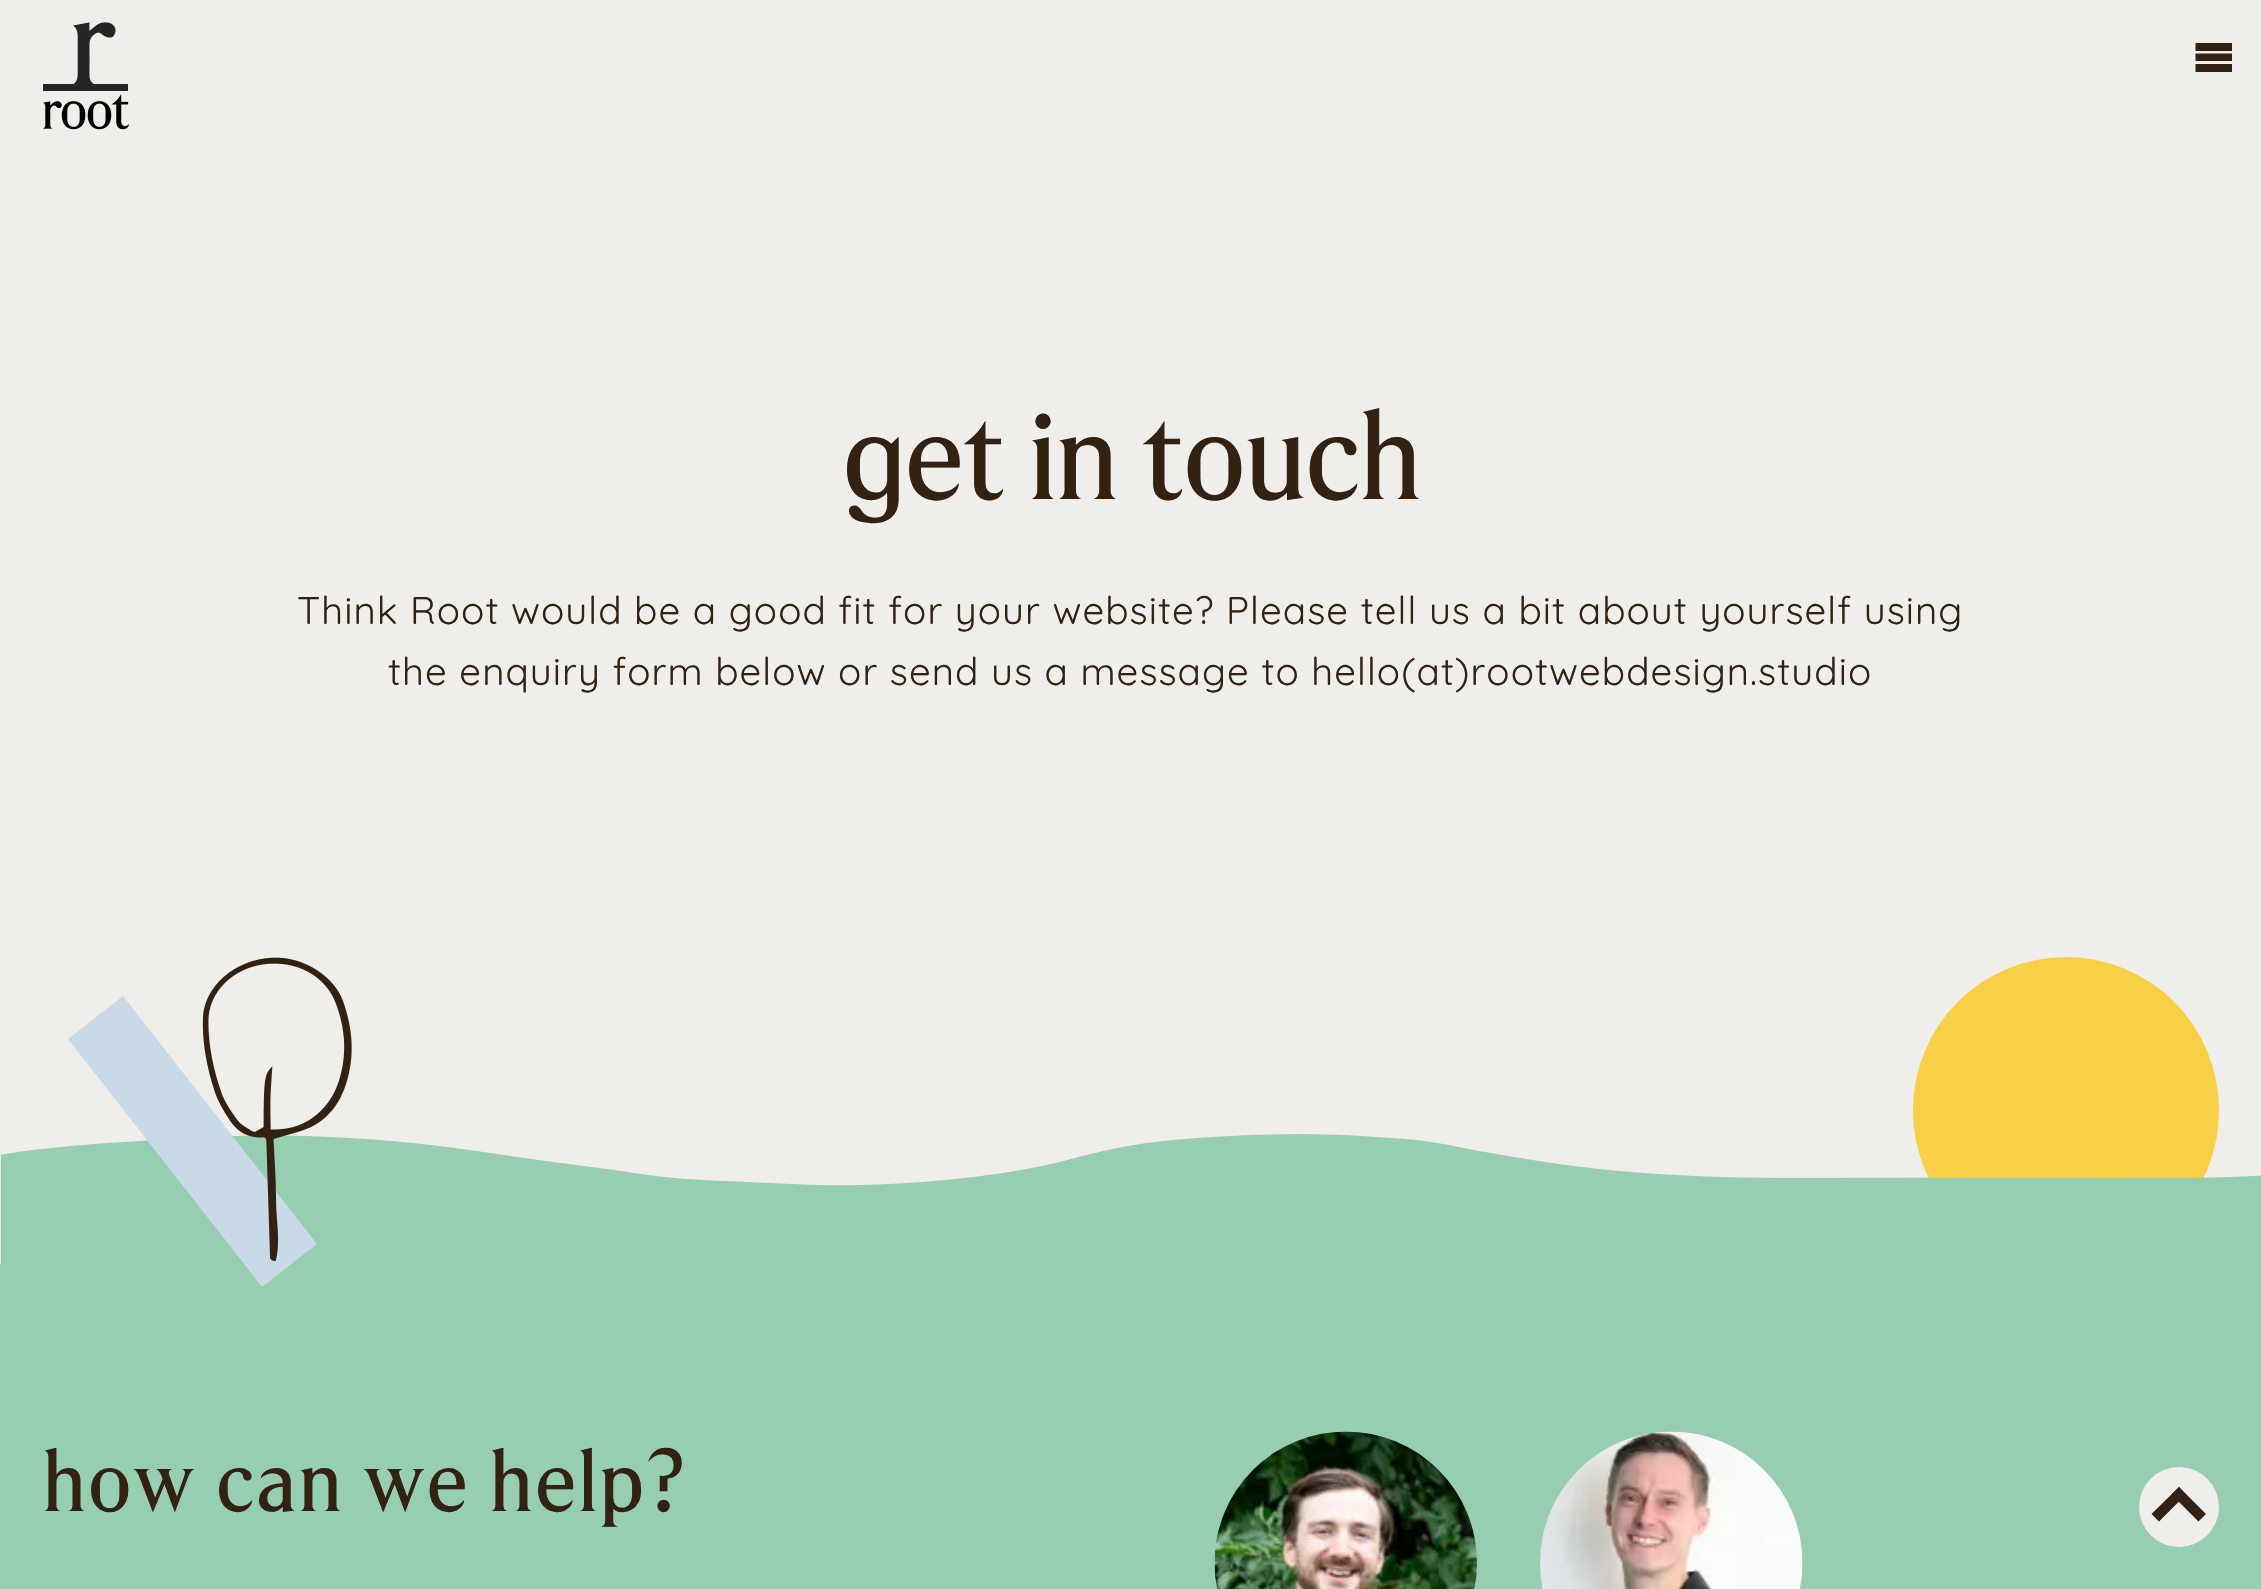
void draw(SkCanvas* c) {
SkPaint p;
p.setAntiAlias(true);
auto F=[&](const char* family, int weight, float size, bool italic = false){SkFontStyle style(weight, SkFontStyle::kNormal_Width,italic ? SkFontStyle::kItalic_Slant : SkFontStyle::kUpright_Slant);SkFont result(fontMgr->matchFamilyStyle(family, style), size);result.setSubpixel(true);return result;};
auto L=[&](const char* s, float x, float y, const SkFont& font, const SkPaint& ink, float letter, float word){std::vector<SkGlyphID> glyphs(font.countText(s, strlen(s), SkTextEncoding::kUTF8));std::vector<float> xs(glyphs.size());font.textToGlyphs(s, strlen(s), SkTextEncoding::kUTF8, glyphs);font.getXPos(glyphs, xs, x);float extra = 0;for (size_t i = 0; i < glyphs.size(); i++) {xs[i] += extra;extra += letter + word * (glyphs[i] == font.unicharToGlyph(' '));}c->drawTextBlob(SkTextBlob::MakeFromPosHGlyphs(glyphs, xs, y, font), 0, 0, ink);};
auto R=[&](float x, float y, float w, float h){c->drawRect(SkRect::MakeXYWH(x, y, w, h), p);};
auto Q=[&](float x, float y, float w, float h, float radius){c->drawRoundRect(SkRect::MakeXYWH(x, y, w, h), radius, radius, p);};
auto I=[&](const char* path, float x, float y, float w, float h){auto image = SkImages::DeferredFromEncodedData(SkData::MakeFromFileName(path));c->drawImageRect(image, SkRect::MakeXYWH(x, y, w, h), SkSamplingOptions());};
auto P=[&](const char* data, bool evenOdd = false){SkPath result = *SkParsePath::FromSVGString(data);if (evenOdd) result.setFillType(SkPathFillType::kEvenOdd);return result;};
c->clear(0xfff0eeeb);
I("1.png",43,22,86,108);
p.setColor(0xff322213);
c->drawPath(P("M2195.5 43h36.5v8h-36.5zm0 10.5h36.5v7.5h-36.5zm0 10.5h36.5v8h-36.5z"),p);
auto f1 = F("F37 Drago",400,126);
L("get in touch",842,499,f1,p,-2.6,0);
auto f2 = F("Quicksand",400,38.5);
L("Think Root would be a good fit for your website? Please tell us a bit about yourself using",297,624,f2,p,1.05,0);
L("the enquiry form below or send us a message to hello(at)rootwebdesign.studio",388,685,f2,p,1.05,0);
p.setColor(0xff97cdb1);
R(0,1264,2261,325);
p.setColor(0xfff8d048);
Q(1913,957,306,307,153);
I("3.png",0,1134,2261,130);
p.setColor(0xffc8d9e7);
c->drawPath(P("M68 1039l55-43l194 248l-55 43z"),p);
I("2.png",202,957,150,305);
auto f3 = F("F37 Drago",400,87.5);
p.setColor(0xff322213);
L("how can we help?",42,1511,f3,p,1.05,0);
I("4.png",1214,1431,263,158);
I("5.png",1540,1431,263,158);
p.setColor(0xfff0eeeb);
c->drawCircle(2179,1507,40,p);
p.setColor(0xff322213);
c->drawPath(P("M2151.5 1514l27.5-27l7 7.5l-27 27z"),p);
c->drawPath(P("M2171.5 1494.5l7.5-7.5l27 27l-7.5 7.5z"),p);
}
